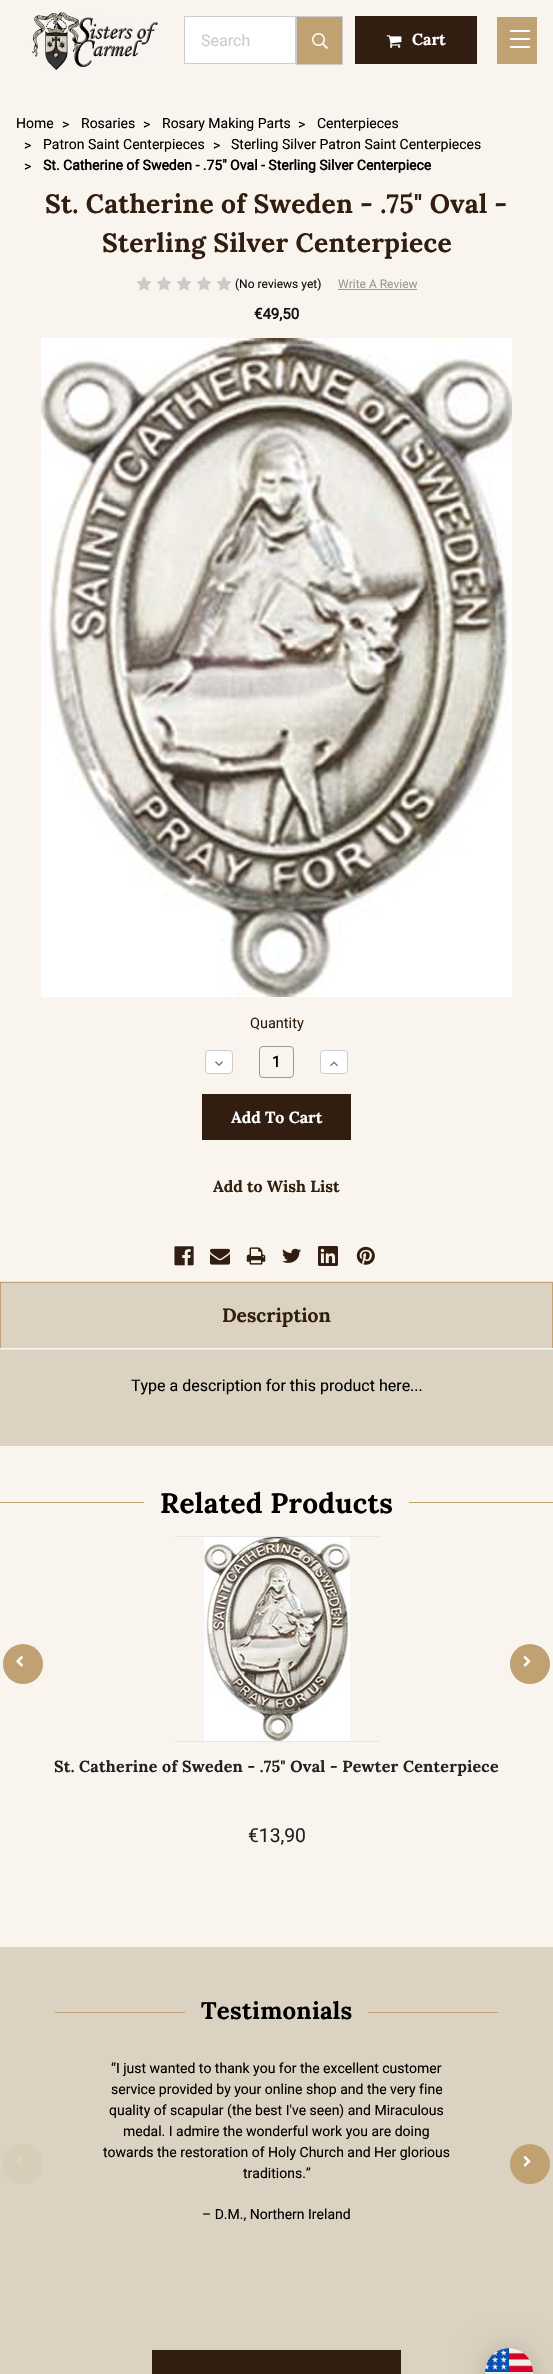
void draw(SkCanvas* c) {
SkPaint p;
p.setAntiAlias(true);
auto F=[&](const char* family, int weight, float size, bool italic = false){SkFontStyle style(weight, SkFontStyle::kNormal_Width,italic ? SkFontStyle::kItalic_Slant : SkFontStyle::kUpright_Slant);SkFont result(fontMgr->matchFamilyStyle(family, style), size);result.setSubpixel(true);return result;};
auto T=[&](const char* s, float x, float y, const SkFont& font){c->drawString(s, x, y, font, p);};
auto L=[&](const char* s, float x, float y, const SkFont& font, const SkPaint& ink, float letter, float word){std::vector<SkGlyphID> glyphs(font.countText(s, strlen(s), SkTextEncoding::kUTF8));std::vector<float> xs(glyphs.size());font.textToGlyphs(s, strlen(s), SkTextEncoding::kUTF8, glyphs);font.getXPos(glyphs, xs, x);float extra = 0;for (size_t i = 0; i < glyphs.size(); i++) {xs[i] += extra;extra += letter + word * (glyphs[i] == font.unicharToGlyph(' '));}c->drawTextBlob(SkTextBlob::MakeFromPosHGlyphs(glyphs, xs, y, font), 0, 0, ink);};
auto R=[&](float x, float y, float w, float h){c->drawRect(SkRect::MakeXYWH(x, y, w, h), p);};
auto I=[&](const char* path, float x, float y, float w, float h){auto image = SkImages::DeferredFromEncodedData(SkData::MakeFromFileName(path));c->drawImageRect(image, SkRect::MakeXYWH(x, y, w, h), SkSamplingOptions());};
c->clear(0xfff9f4ee);
I("1.png",31,11,128,60);
p.setColor(0xffffffff);
c->drawRect(SkRect::MakeXYWH(184.5,16.5,111,47),p);
p.setStroke(true);
p.setStrokeWidth(1);
p.setColor(0xffcccccc);
c->drawRect(SkRect::MakeXYWH(184.5,16.5,111,47),p);
auto f1 = F("Roboto",400,16);
p.setStroke(false);
T("Search",201,46,f1);
p.setColor(0xffc0a172);
c->drawRect(SkRect::MakeXYWH(296.5,16.5,46,48),p);
p.setStroke(true);
p.setColor(0xffcccccc);
c->drawRect(SkRect::MakeXYWH(296.5,16.5,46,48),p);
I("2.png",312,33,16,16);
p.setStroke(false);
p.setColor(0xff311e10);
R(355,16,122,48);
I("3.png",386,35,16,13);
auto f2 = F("Lora",700,16);
p.setColor(0xffffffff);
T("Cart",412,45,f2);
p.setColor(0xffc0a172);
R(497,17,40,47);
p.setColor(0xffffffff);
R(510,38,20,2);
R(510,30,20,2);
R(510,46,20,2);
auto f3 = F("Roboto",400,14);
p.setColor(0xff000000);
T("Home",16,128,f3);
T(">",62,129,f3);
T("Rosaries",81,128,f3);
T(">",143,129,f3);
T("Rosary Making Parts",162,128,f3);
T(">",298,129,f3);
T("Centerpieces",317,128,f3);
T(">",24,150,f3);
T("Patron Saint Centerpieces",43,149,f3);
T(">",213,150,f3);
T("Sterling Silver Patron Saint Centerpieces",231,149,f3);
T(">",24,171,f3);
auto f4 = F("Roboto",700,14);
T("St. Catherine of Sweden - .75\" Oval - Sterling Silver Centerpiece",43,170,f4);
auto f5 = F("Lora",700,26.4);
p.setColor(0xff311e10);
L("St. Catherine of Sweden - .75\" Oval -",45,213,f5,p,.25,0);
L("Sterling Silver Centerpiece",102,252,f5,p,.25,0);
I("4.png",136,276,16,15);
I("4.png",156,276,16,15);
I("4.png",176,276,16,15);
I("4.png",196,276,16,15);
I("4.png",216,276,16,15);
auto f6 = F("Roboto",400,12);
p.setColor(0xff111111);
T("(No reviews yet)",235,288,f6);
p.setColor(0xff999999);
T("Write A Review",338,288,f6);
R(338,289,79,1);
auto f7 = F("Roboto",700,15);
p.setColor(0xff111111);
T("€49,50",254,319,f7);
I("5.png",41,338,471,659);
auto f8 = F("Roboto",400,14.5);
p.setColor(0xff311e10);
T("Quantity",250,1028,f8);
p.setColor(0xffffffff);
c->drawRoundRect(SkRect::MakeXYWH(205.5,1050.5,27,23),3.5,3.5,p);
p.setStroke(true);
p.setColor(0xffcccccc);
c->drawRoundRect(SkRect::MakeXYWH(205.5,1050.5,27,23),3.5,3.5,p);
I("6.png",215,1061,8,5);
p.setColor(0xff999999);
c->drawRoundRect(SkRect::MakeXYWH(259.5,1046.5,34,31),3.5,3.5,p);
p.setStroke(false);
p.setColor(0xff000000);
T("1",272,1067,f7);
p.setColor(0xffffffff);
c->drawRoundRect(SkRect::MakeXYWH(320.5,1050.5,27,23),3.5,3.5,p);
p.setStroke(true);
p.setColor(0xffcccccc);
c->drawRoundRect(SkRect::MakeXYWH(320.5,1050.5,27,23),3.5,3.5,p);
I("7.png",330,1061,8,6);
p.setStroke(false);
p.setColor(0xff311e10);
R(202,1094,149,46);
p.setColor(0xffffffff);
T("Add To Cart",231,1123,f2);
p.setColor(0xff311e10);
T("Add to Wish List",213,1192,f2);
I("8.png",174,1246,20,20);
I("9.png",210,1248,20,17);
I("10.png",246,1247,20,18);
I("11.png",282,1248,20,15);
I("12.png",318,1246,20,20);
I("13.png",356,1246,19,19);
p.setColor(0xffe5e5e5);
R(0,1349,553,1);
p.setColor(0xffdbd2c1);
R(1,1283,551,65);
p.setColor(0xffe5e5e5);
R(0,1281,553,1);
p.setColor(0xffc0a172);
R(0,1282,553,1);
R(552,1282,1,66);
R(0,1282,1,66);
auto f9 = F("Lora",700,19.25);
p.setColor(0xff311e10);
T("Description",222,1322,f9);
p.setColor(0xffdbd2c1);
R(0,1350,553,96);
p.setColor(0xff000000);
T("Type a description for this product here...",131,1391,f1);
p.setColor(0xffc0a172);
R(0,1502,553,1);
p.setColor(0xfff9f4ee);
R(144,1502,265,1);
auto f10 = F("Lora",700,28);
p.setColor(0xff000000);
L("Related Products",160,1513,f10,p,.25,0);
p.setColor(0xffc0a172);
c->drawCircle(23,1664,20,p);
I("14.png",16,1655,8,12);
c->drawCircle(530,1664,20,p);
I("15.png",523,1655,8,12);
p.setColor(0xffe5e5e5);
R(175,1536,204,1);
R(175,1741,204,1);
I("16.png",204,1537,146,204);
p.setColor(0xff222222);
L("St. Catherine of Sweden - .75\" Oval - Pewter Centerpiece",54,1772,f2,p,.25,0);
auto f11 = F("Roboto",400,19.25);
T("€13,90",248,1842,f11);
p.setColor(0xffdbd2c1);
R(0,1947,553,427);
{
const SkColor colors[] = {0xffdbd2c1,0xffdbd2c1,0xffc0a172,0xffc0a172,0xffdbd2c1};
const float stops[] = {0,.48,.48,.51,.51};
const SkPoint ends[] = {{277,2026}, {277,1999}};
p.setShader(SkGradientShader::MakeLinear(ends, colors, stops, 5, SkTileMode::kClamp));
p.setAlpha(255);
}
R(55,2012,443,1);
p.setShader(nullptr);
p.setColor(0xffdbd2c1);
R(185,2012,183,1);
auto f12 = F("Lora",700,24);
p.setColor(0xff000000);
L("Testimonials",201,2019,f12,p,.25,0);
p.setColor(0xffd8cdb9);
c->drawCircle(23,2164,20,p);
I("17.png",16,2156,7,11);
p.setColor(0xff000000);
T("“I just wanted to thank you for the excellent customer",111,2073,f3);
T("service provided by your online shop and the very fine",111,2094,f3);
T("quality of scapular (the best I've seen) and Miraculous",109,2115,f3);
T("medal. I admire the wonderful work you are doing",123,2136,f3);
T("towards the restoration of Holy Church and Her glorious",103,2157,f3);
T("traditions.”",243,2178,f3);
T("– D.M., Northern Ireland",202,2219,f3);
p.setColor(0xffc0a172);
c->drawCircle(530,2164,20,p);
I("15.png",523,2155,8,12);
p.setColor(0xff311e10);
R(152,2350,249,24);
p.setColor(0x29000000);
p.setMaskFilter(SkMaskFilter::MakeBlur(kNormal_SkBlurStyle, 16));
c->drawRoundRect(SkRect::MakeXYWH(485,2350,48,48),24,24,p);
p.setMaskFilter(nullptr);
p.setColor(0x0f000000);
p.setMaskFilter(SkMaskFilter::MakeBlur(kNormal_SkBlurStyle, 3));
c->drawRoundRect(SkRect::MakeXYWH(485,2349,48,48),24,24,p);
p.setMaskFilter(nullptr);
I("18.png",485,2348,48,26);
}
